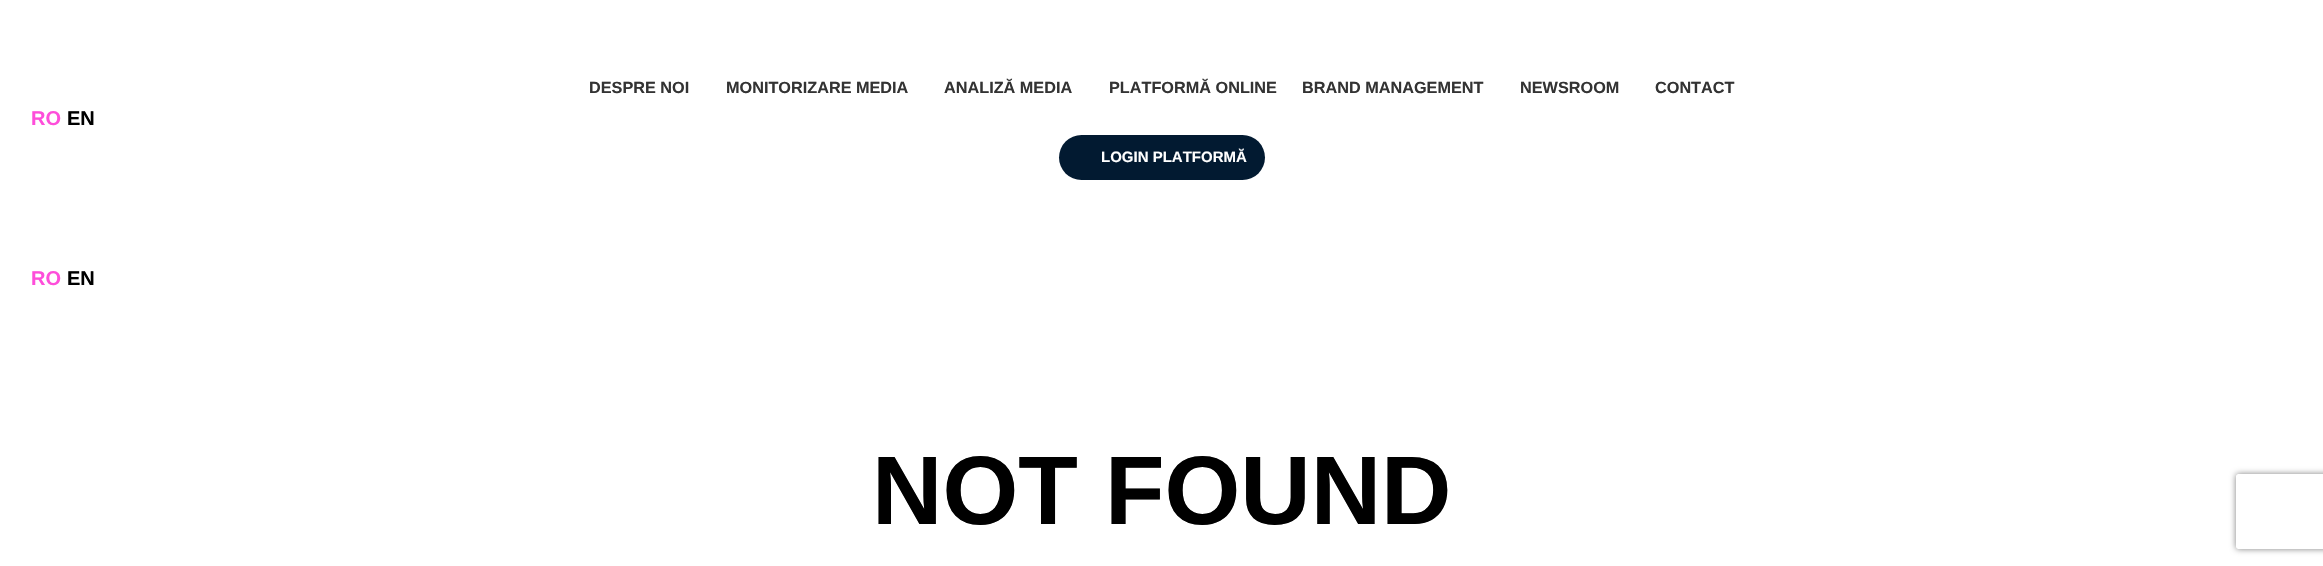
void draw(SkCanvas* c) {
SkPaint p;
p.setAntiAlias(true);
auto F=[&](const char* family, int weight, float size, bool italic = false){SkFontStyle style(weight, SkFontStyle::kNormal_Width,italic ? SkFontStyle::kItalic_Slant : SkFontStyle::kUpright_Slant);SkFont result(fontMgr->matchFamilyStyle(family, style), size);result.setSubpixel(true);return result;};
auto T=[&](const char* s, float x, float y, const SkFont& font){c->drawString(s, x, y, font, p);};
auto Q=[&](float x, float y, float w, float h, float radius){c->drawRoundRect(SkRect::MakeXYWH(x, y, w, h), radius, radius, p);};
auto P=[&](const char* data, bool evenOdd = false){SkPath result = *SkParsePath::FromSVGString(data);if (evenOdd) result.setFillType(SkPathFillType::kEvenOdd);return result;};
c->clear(0xffffffff);
auto f1 = F("Liberation Sans",700,16.25);
p.setColor(0xff333333);
T("DESPRE NOI",589,93,f1);
T("MONITORIZARE MEDIA",726,93,f1);
T("ANALIZĂ MEDIA",944,93,f1);
T("PLATFORMĂ ONLINE",1109,93,f1);
T("BRAND MANAGEMENT",1302,93,f1);
T("NEWSROOM",1520,93,f1);
T("CONTACT",1655,93,f1);
auto f2 = F("Liberation Sans",700,20);
p.setColor(0xfffe4eda);
T("RO",31,125,f2);
p.setColor(0xff000000);
T("EN",67,125,f2);
p.setColor(0xff021a31);
Q(1059,135,206,45,22.5);
auto f3 = F("Liberation Sans",700,15);
p.setColor(0xffffffff);
T("LOGIN PLATFORMĂ",1101,162,f3);
p.setColor(0xfffe4eda);
T("RO",31,285,f2);
p.setColor(0xff000000);
T("EN",67,285,f2);
auto f4 = F("Liberation Sans",700,97.5);
T("NOT FOUND",872,524,f4);
c->save();
c->clipPath(P("M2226 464h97v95h-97zm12.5 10h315c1.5 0 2.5 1 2.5 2.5v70c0 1.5-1 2.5-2.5 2.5h-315c-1.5 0-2.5-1-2.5-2.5v-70c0-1.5 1-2.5 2.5-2.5z",true),true);
p.setColor(0xff808080);
p.setMaskFilter(SkMaskFilter::MakeBlur(kNormal_SkBlurStyle, 3));
c->drawRoundRect(SkRect::MakeXYWH(2236,474,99,75),2.5,2.5,p);
p.setMaskFilter(nullptr);
c->restore();
}
